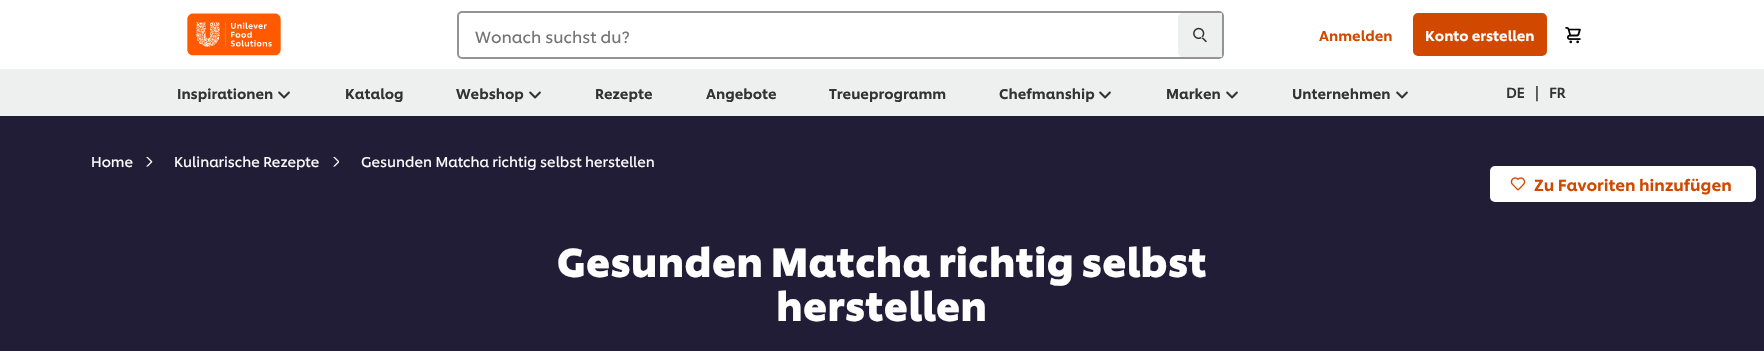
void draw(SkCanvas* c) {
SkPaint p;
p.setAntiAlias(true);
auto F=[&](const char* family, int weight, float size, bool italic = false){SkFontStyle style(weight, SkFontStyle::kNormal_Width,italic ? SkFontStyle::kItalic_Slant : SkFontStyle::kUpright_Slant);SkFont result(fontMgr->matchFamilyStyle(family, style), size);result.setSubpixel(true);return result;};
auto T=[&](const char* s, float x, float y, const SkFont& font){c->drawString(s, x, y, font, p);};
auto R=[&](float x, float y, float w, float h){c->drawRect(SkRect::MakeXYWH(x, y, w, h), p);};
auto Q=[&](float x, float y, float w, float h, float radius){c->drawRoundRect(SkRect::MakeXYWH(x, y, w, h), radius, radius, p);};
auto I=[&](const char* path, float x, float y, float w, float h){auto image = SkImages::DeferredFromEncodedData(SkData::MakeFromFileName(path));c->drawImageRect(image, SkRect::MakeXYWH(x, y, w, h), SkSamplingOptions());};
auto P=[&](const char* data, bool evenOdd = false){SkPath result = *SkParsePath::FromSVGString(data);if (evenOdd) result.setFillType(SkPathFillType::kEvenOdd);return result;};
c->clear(0xffffffff);
I("1.png",187,13,94,43);
p.setStroke(true);
p.setStrokeWidth(2);
p.setColor(0xff949494);
c->drawRoundRect(SkRect::MakeXYWH(458,12,765,46),4,4,p);
auto f1 = F("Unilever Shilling",400,16);
p.setStroke(false);
p.setColor(0xff757575);
T("Wonach suchst du?",475,43,f1);
p.setColor(0xffeeefef);
c->drawPath(P("M1183 13h39v44h-39c-3 0-5-2-5-5v-34c0-3 2-5 5-5z"),p);
I("2.png",1193,27,14,16);
auto f2 = F("Unilever Shilling",500,14);
p.setColor(0xffd14900);
T("Anmelden",1319,41,f2);
Q(1413,13,134,43,5);
p.setColor(0xffffffff);
T("Konto erstellen",1425,41,f2);
I("3.png",1565,27,16,17);
p.setColor(0xffeeefef);
R(0,69,1764,47);
p.setColor(0xff333333);
T("Inspirationen",177,99,f2);
I("4.png",278,91,12,8);
T("Katalog",345,99,f2);
T("Webshop",456,99,f2);
I("4.png",529,91,12,8);
T("Rezepte",595,99,f2);
T("Angebote",706,99,f2);
T("Treueprogramm",829,99,f2);
T("Chefmanship",999,99,f2);
I("4.png",1099,91,12,8);
T("Marken",1166,99,f2);
I("4.png",1226,91,12,8);
T("Unternehmen",1292,99,f2);
I("4.png",1396,91,12,8);
auto f3 = F("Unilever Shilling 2",700,14);
T("DE",1506,98,f3);
T("|",1535,98,f1);
T("FR",1549,98,f3);
p.setColor(0xff221d37);
R(0,116,1764,235);
auto f4 = F("Unilever Shilling",400,14);
p.setColor(0xffffffff);
T("Home",91,167,f4);
I("5.png",146,157,7,10);
T("Kulinarische Rezepte",174,167,f4);
I("6.png",333,157,6,10);
T("Gesunden Matcha richtig selbst herstellen",361,167,f4);
Q(1490,166,266,36,5);
I("7.png",1510,177,16,14);
auto f5 = F("Unilever Shilling",500,16);
p.setColor(0xffd14900);
T("Zu Favoriten hinzufügen",1534,191,f5);
auto f6 = F("Unilever Shilling",700,40);
p.setColor(0xffffffff);
T("Gesunden Matcha richtig selbst",557,277,f6);
T("herstellen",776,321,f6);
}
